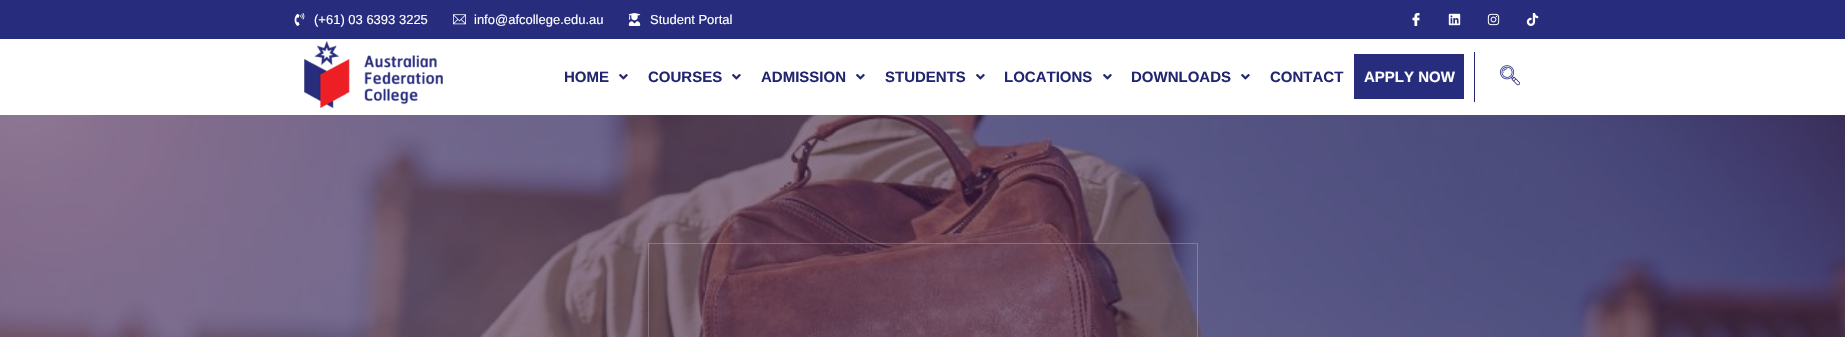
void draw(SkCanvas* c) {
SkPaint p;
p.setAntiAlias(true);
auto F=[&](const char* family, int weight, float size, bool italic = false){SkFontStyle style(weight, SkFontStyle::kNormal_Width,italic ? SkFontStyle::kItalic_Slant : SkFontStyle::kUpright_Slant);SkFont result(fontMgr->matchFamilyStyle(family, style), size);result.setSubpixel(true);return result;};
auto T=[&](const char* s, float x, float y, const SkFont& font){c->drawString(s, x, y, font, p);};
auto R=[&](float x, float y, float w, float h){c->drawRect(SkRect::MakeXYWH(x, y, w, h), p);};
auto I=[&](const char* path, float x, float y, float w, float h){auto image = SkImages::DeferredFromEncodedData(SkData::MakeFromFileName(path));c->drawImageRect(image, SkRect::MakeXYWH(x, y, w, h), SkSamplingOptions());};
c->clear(0xffffffff);
p.setColor(0xff282c7d);
R(0,0,1845,39);
I("1.png",294,13,11,13);
auto f1 = F("Liberation Sans",400,13);
p.setColor(0xffffffff);
T("(+61) 03 6393 3225",314,24,f1);
I("2.png",453,14,13,11);
T("info@afcollege.edu.au",474,24,f1);
I("3.png",628,13,13,13);
T("Student Portal",650,24,f1);
I("4.png",1412,13,8,13);
I("5.png",1448,13,13,13);
I("6.png",1487,13,13,13);
I("7.png",1526,13,13,13);
I("8.png",304,41,139,68);
auto f2 = F("Liberation Sans",700,15);
p.setColor(0xff22256f);
T("HOME",564,82,f2);
I("9.png",619,74,9,6);
T("COURSES",648,82,f2);
I("9.png",732,74,9,6);
T("ADMISSION",761,82,f2);
I("9.png",856,74,9,6);
T("STUDENTS",885,82,f2);
I("9.png",976,74,9,6);
T("LOCATIONS",1004,82,f2);
I("9.png",1103,74,9,6);
T("DOWNLOADS",1131,82,f2);
I("9.png",1241,74,9,6);
T("CONTACT",1270,82,f2);
p.setColor(0xff282c7d);
R(1354,54,110,45);
p.setColor(0xffffffff);
T("APPLY NOW",1364,82,f2);
p.setColor(0xff22256f);
R(1474,52,1,50);
I("10.png",1500,65,20,21);
I("11.png",0,115,1845,222);
p.setStroke(true);
p.setStrokeWidth(1);
p.setColor(0x3bffffff);
c->drawRect(SkRect::MakeXYWH(648.5,243.5,549,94),p);
}
